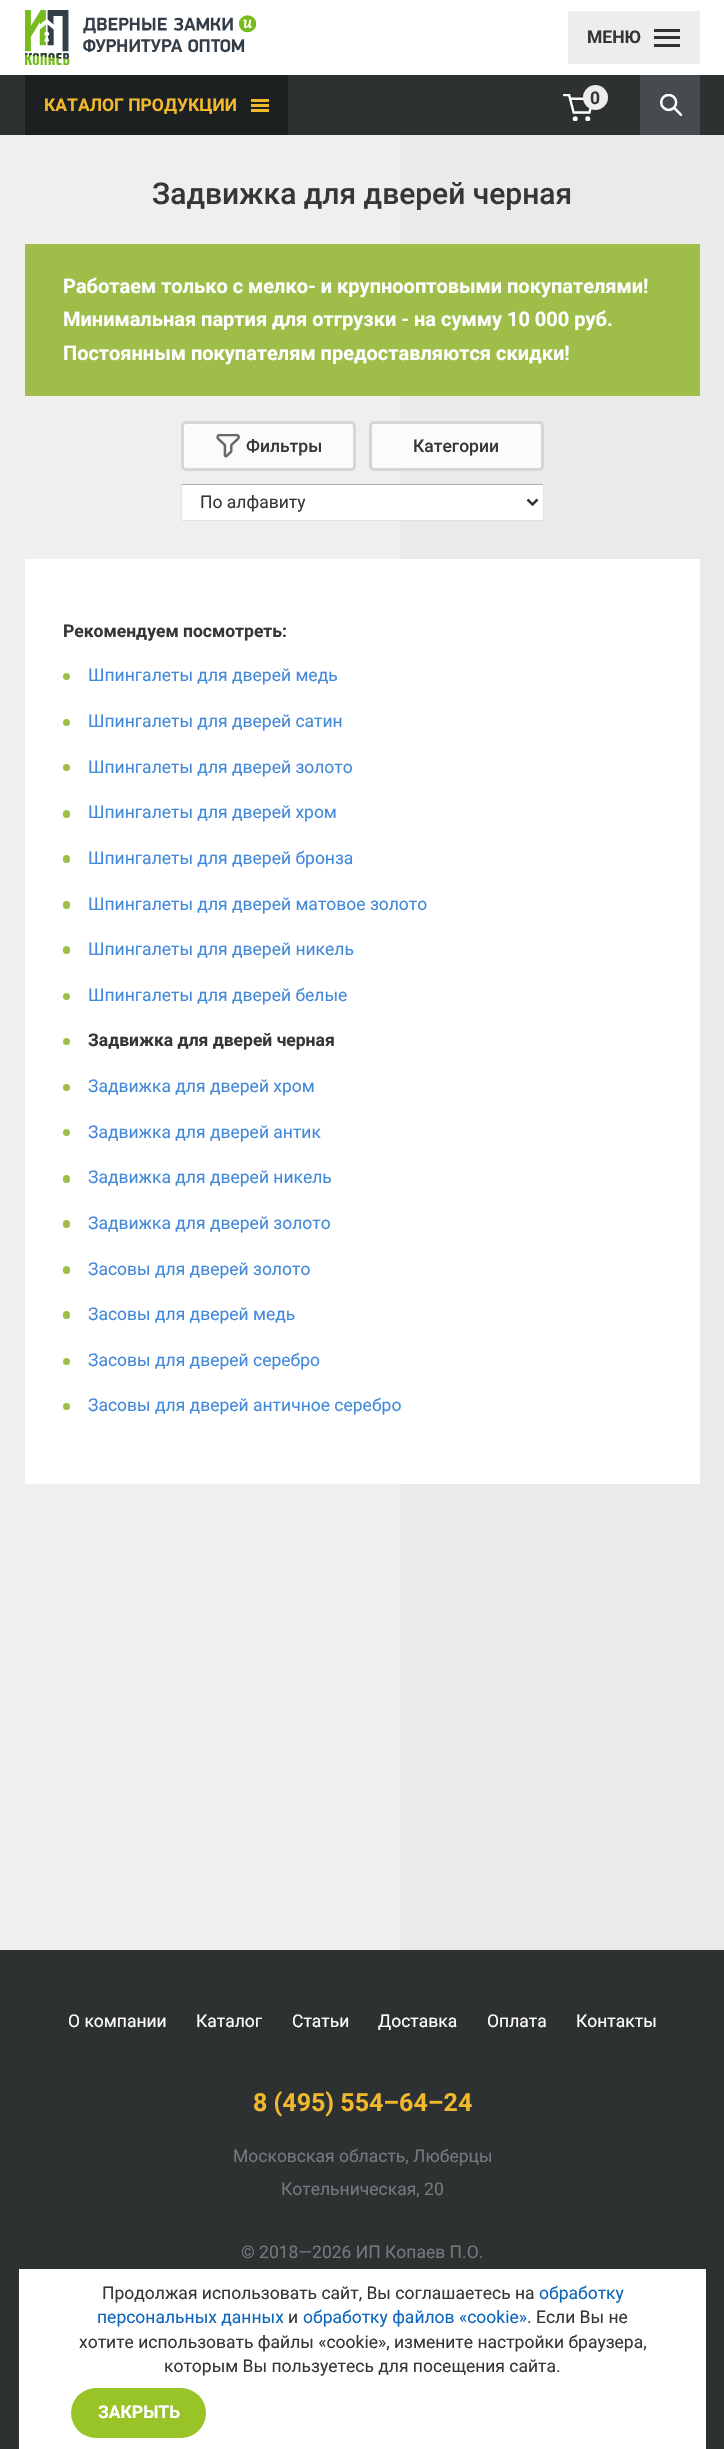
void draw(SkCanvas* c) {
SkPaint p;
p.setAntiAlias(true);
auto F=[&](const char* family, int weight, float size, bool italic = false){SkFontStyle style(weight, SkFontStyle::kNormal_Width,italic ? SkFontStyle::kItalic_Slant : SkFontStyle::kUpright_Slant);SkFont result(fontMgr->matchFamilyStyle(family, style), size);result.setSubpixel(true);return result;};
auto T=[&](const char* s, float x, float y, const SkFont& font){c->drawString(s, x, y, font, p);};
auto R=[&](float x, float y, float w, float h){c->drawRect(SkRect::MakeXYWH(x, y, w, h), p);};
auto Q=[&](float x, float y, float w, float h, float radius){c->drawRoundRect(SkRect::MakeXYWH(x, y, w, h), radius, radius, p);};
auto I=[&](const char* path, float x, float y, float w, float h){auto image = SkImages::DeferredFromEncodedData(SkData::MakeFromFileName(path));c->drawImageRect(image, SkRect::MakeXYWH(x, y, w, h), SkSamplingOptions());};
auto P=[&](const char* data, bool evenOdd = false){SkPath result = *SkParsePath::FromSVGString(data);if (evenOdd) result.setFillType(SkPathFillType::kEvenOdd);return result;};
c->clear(0xffeaeaea);
p.setColor(0xffffffff);
R(0,0,724,75);
I("1.png",25,10,231,55);
p.setColor(0xffededed);
R(568,11,132,53);
auto f1 = F("Roboto",700,17.5);
p.setColor(0xff363636);
T("МЕНЮ",587,43,f1);
p.setColor(0xff2d3132);
R(654,29,26,3);
R(654,44,26,3);
R(654,36,26,3);
R(0,75,724,60);
p.setColor(0xff1d2021);
R(25,75,263,60);
p.setColor(0xfff1b82e);
T("КАТАЛОГ ПРОДУКЦИИ",44,111,f1);
R(251,99,18,3);
R(251,109,18,3);
R(251,104,18,3);
I("2.png",563,94,29,27);
p.setColor(0xffededed);
c->drawCircle(595.5,97.5,12.5,p);
p.setColor(0xff363636);
T("0",590,104,f1);
p.setColor(0xff464b50);
R(640,75,60,60);
I("3.png",660,94,23,22);
p.setColor(0xffefefef);
R(0,135,400,1815);
auto f2 = F("Roboto",500,30);
p.setColor(0xff363636);
T("Задвижка для дверей черная",152,204,f2);
p.setColor(0xff9ebe49);
R(25,244,675,152);
auto f3 = F("Roboto",700,20);
p.setColor(0xffffffff);
T("Работаем только с мелко- и крупнооптовыми покупателями!",63,293,f3);
T("Минимальная партия для отгрузки - на сумму 10 000 руб.",63,326,f3);
T("Постоянным покупателям предоставляются скидки!",63,360,f3);
p.setColor(0xfffbfbfb);
c->drawRoundRect(SkRect::MakeXYWH(182.5,422.5,172,47),3.5,3.5,p);
p.setStroke(true);
p.setStrokeWidth(3);
p.setColor(0xffd6d6d6);
c->drawRoundRect(SkRect::MakeXYWH(182.5,422.5,172,47),3.5,3.5,p);
I("4.png",216,434,24,24);
auto f4 = F("Roboto",500,17.5);
p.setStroke(false);
p.setColor(0xff363636);
T("Фильтры",246,452,f4);
p.setColor(0xfffbfbfb);
c->drawRoundRect(SkRect::MakeXYWH(370.5,422.5,172,47),3.5,3.5,p);
p.setStroke(true);
p.setColor(0xffd6d6d6);
c->drawRoundRect(SkRect::MakeXYWH(370.5,422.5,172,47),3.5,3.5,p);
p.setStroke(false);
p.setColor(0xff363636);
T("Категории",413,452,f4);
p.setColor(0xffffffff);
R(182,485,361,35);
p.setColor(0xffabadb3);
R(181,484,363,1);
p.setColor(0xffe2e3ea);
R(543,484,1,37);
R(181,520,363,1);
R(181,484,1,37);
p.setStroke(true);
p.setStrokeWidth(2.5);
p.setColor(0xff363636);
c->drawPath(P("M527.5 499.5l5 5l5-5"),p);
auto f5 = F("Roboto",400,17.5);
p.setStroke(false);
T("По алфавиту",200,508,f5);
p.setColor(0xffffffff);
R(25,559,675,925);
p.setColor(0xff363636);
T("Рекомендуем посмотреть:",63,637,f1);
p.setColor(0xff9ebe49);
c->drawCircle(66.5,676.5,3.5,p);
p.setColor(0xff4289d9);
T("Шпингалеты для дверей медь",88,681,f5);
p.setColor(0xff9ebe49);
c->drawCircle(66.5,722.5,3.5,p);
p.setColor(0xff4289d9);
T("Шпингалеты для дверей сатин",88,727,f5);
p.setColor(0xff9ebe49);
c->drawCircle(66.5,767.5,3.5,p);
p.setColor(0xff4289d9);
T("Шпингалеты для дверей золото",88,773,f5);
p.setColor(0xff9ebe49);
Q(63,810,7,8,3.5);
p.setColor(0xff4289d9);
T("Шпингалеты для дверей хром",88,818,f5);
p.setColor(0xff9ebe49);
Q(63,855,7,8,3.5);
p.setColor(0xff4289d9);
T("Шпингалеты для дверей бронза",88,864,f5);
p.setColor(0xff9ebe49);
Q(63,901,7,8,3.5);
p.setColor(0xff4289d9);
T("Шпингалеты для дверей матовое золото",88,910,f5);
p.setColor(0xff9ebe49);
Q(63,946,7,8,3.5);
p.setColor(0xff4289d9);
T("Шпингалеты для дверей никель",88,955,f5);
p.setColor(0xff9ebe49);
c->drawCircle(66.5,996.5,3.5,p);
p.setColor(0xff4289d9);
T("Шпингалеты для дверей белые",88,1001,f5);
p.setColor(0xff9ebe49);
c->drawCircle(66.5,1041.5,3.5,p);
p.setColor(0xff363636);
T("Задвижка для дверей черная",88,1046,f1);
p.setColor(0xff9ebe49);
c->drawCircle(66.5,1087.5,3.5,p);
p.setColor(0xff4289d9);
T("Задвижка для дверей хром",88,1092,f5);
p.setColor(0xff9ebe49);
c->drawCircle(66.5,1132.5,3.5,p);
p.setColor(0xff4289d9);
T("Задвижка для дверей антик",88,1138,f5);
p.setColor(0xff9ebe49);
Q(63,1175,7,8,3.5);
p.setColor(0xff4289d9);
T("Задвижка для дверей никель",88,1183,f5);
p.setColor(0xff9ebe49);
Q(63,1220,7,8,3.5);
p.setColor(0xff4289d9);
T("Задвижка для дверей золото",88,1229,f5);
p.setColor(0xff9ebe49);
Q(63,1266,7,8,3.5);
p.setColor(0xff4289d9);
T("Засовы для дверей золото",88,1275,f5);
p.setColor(0xff9ebe49);
Q(63,1311,7,8,3.5);
p.setColor(0xff4289d9);
T("Засовы для дверей медь",88,1320,f5);
p.setColor(0xff9ebe49);
c->drawCircle(66.5,1361.5,3.5,p);
p.setColor(0xff4289d9);
T("Засовы для дверей серебро",88,1366,f5);
p.setColor(0xff9ebe49);
c->drawCircle(66.5,1406.5,3.5,p);
p.setColor(0xff4289d9);
T("Засовы для дверей античное серебро",88,1411,f5);
p.setColor(0xff2d3132);
R(0,1950,724,499);
p.setColor(0xffffffff);
T("О компании",68,2027,f5);
T("Каталог",196,2027,f5);
T("Статьи",292,2027,f5);
T("Доставка",378,2027,f5);
T("Оплата",487,2027,f5);
T("Контакты",576,2027,f5);
auto f6 = F("Roboto",700,25);
p.setColor(0xfff1b82e);
T("8 (495) 554–64–24",253,2111,f6);
p.setColor(0xff75797b);
T("Московская область, Люберцы",233,2162,f5);
T("Котельническая, 20",281,2195,f5);
T("© 2018—2026 ИП Копаев П.О.",241,2258,f5);
p.setColor(0xffffffff);
R(19,2269,687,180);
p.setColor(0xff363636);
T("Продолжая использовать сайт, Вы соглашаетесь на",102,2299,f5);
p.setColor(0xff0d66bc);
T("обработку",539,2299,f5);
T("персональных данных",97,2323,f5);
p.setColor(0xff363636);
T("и",288,2323,f5);
p.setColor(0xff0d66bc);
T("обработку файлов «cookie»",303,2323,f5);
p.setColor(0xff363636);
T(". Если Вы не",527,2323,f5);
T("хотите использовать файлы «cookie», измените настройки браузера,",79,2348,f5);
T("которым Вы пользуетесь для посещения сайта.",164,2372,f5);
p.setColor(0xff99c427);
Q(71,2388,135,50,25);
p.setColor(0xffffffff);
T("ЗАКРЫТЬ",98,2418,f1);
}
